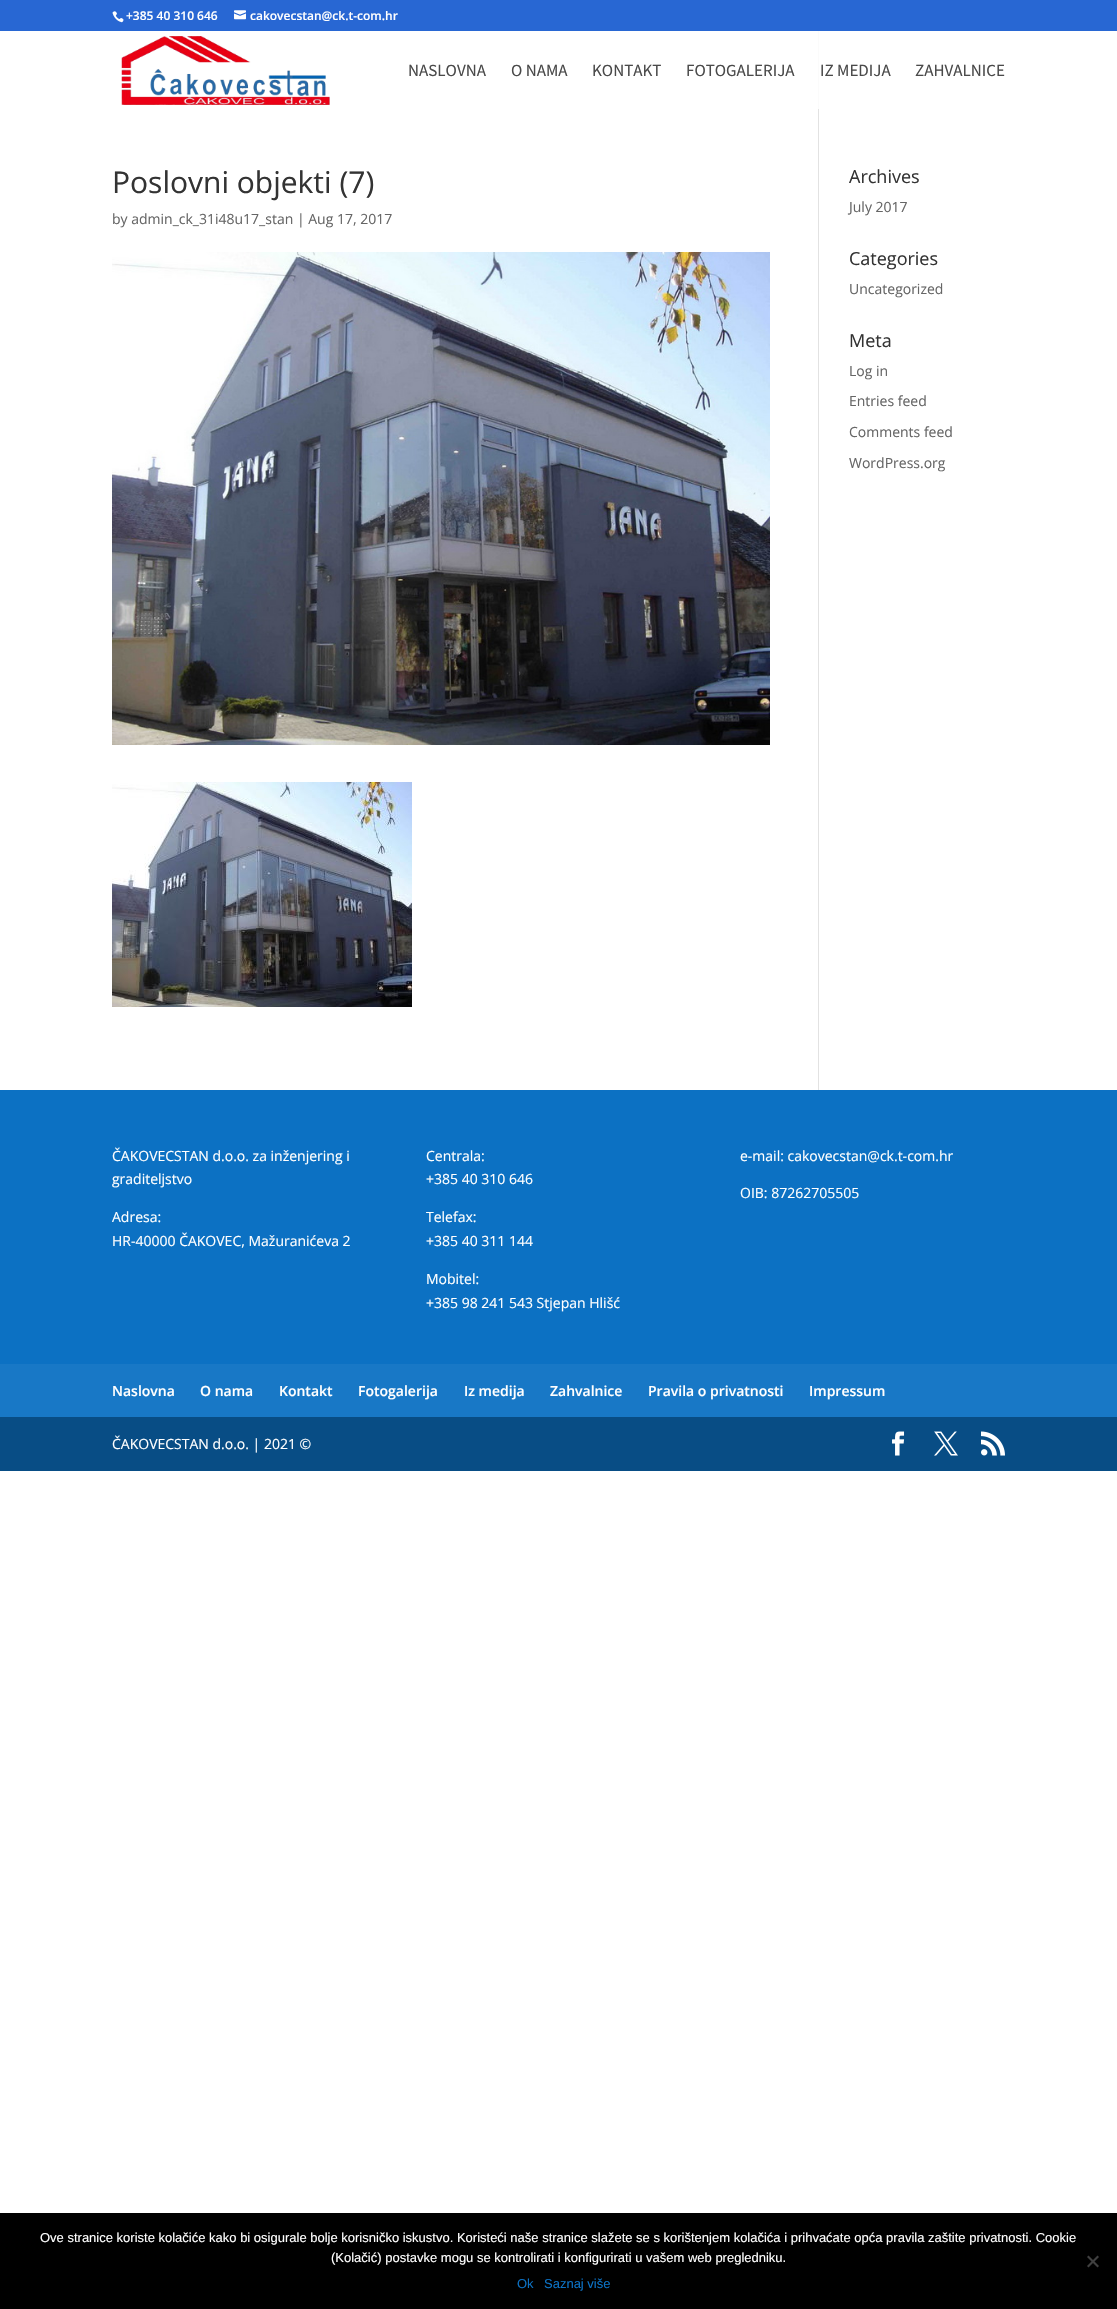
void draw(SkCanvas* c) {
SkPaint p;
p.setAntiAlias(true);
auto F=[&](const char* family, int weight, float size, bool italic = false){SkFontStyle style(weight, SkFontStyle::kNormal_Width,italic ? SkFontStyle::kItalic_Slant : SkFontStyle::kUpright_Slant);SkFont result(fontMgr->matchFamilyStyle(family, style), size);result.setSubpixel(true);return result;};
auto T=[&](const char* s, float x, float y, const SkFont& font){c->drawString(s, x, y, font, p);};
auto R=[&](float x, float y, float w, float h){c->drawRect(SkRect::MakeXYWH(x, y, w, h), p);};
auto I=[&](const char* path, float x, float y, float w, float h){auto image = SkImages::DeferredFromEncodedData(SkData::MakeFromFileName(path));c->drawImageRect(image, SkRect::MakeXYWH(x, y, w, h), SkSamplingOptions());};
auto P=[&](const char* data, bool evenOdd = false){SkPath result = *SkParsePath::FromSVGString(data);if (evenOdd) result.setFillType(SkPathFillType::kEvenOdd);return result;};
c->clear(0xffffffff);
p.setColor(0xff2867d3);
R(0,0,1117,31);
I("1.png",112,11,12,12);
auto f1 = F("Open Sans",600,12);
p.setColor(0xffffffff);
T("+385 40 310 646",126,20,f1);
I("2.png",234,10,12,10);
T("cakovecstan@ck.t-com.hr",250,20,f1);
p.setColor(0xffe2e2e2);
R(818,31,1,1059);
p.setColor(0xdeffffff);
R(818,31,1,78);
I("3.png",121,36,209,69);
auto f2 = F("Source Sans Pro",400,17);
p.setColor(0xff4a4a4a);
T("NASLOVNA",408,76,f2);
T("O NAMA",511,76,f2);
T("KONTAKT",592,76,f2);
T("FOTOGALERIJA",686,76,f2);
T("IZ MEDIJA",820,76,f2);
T("ZAHVALNICE",915,76,f2);
auto f3 = F("Open Sans",400,30);
p.setColor(0xff333333);
T("Poslovni objekti (7)",112,193,f3);
auto f4 = F("Open Sans",400,14);
p.setColor(0xff666666);
T("by admin_ck_31i48u17_stan | Aug 17, 2017",112,224,f4);
I("4.png",112,252,658,493);
I("5.png",112,782,300,225);
auto f5 = F("Open Sans",400,18);
p.setColor(0xff333333);
T("Archives",849,183,f5);
p.setColor(0xff666666);
T("July 2017",849,212,f4);
p.setColor(0xff333333);
T("Categories",849,265,f5);
p.setColor(0xff666666);
T("Uncategorized",849,294,f4);
p.setColor(0xff333333);
T("Meta",849,347,f5);
p.setColor(0xff666666);
T("Log in",849,376,f4);
T("Entries feed",849,406,f4);
T("Comments feed",849,437,f4);
T("WordPress.org",849,468,f4);
p.setColor(0xff0c71c3);
R(0,1090,1117,274);
p.setColor(0xffffffff);
T("ČAKOVECSTAN d.o.o. za inženjering i",112,1161,f4);
T("graditeljstvo",112,1184,f4);
T("Adresa:",112,1222,f4);
T("HR-40000 ČAKOVEC, Mažuranićeva 2",112,1246,f4);
T("Centrala:",426,1161,f4);
T("+385 40 310 646",426,1184,f4);
T("Telefax:",426,1222,f4);
T("+385 40 311 144",426,1246,f4);
T("Mobitel:",426,1284,f4);
T("+385 98 241 543 Stjepan Hlišć",426,1308,f4);
T("e-mail: cakovecstan@ck.t-com.hr",740,1161,f4);
T("OIB: 87262705505",740,1198,f4);
p.setColor(0xff1878c6);
R(0,1364,1117,53);
auto f6 = F("Open Sans",600,14);
p.setColor(0xffffffff);
T("Naslovna",112,1396,f6);
T("O nama",200,1396,f6);
T("Kontakt",279,1396,f6);
T("Fotogalerija",358,1396,f6);
T("Iz medija",464,1396,f6);
T("Zahvalnice",550,1396,f6);
T("Pravila o privatnosti",648,1396,f6);
T("Impressum",809,1396,f6);
p.setColor(0xff084d85);
R(0,1417,1117,54);
p.setColor(0xffffffff);
T("ČAKOVECSTAN d.o.o. | 2021 ©",112,1449,f4);
I("6.png",892,1431,13,25);
I("7.png",934,1431,24,25);
I("8.png",981,1431,24,25);
p.setColor(0xff000000);
R(0,2213,1117,96);
auto f7 = F("Liberation Sans",400,13);
p.setColor(0xffffffff);
T("Ove stranice koriste kolačiće kako bi osigurale bolje korisničko iskustvo. Koristeći naše stranice slažete se s korištenjem kolačića i prihvaćate opća pravila zaštite privatnosti. Cookie",40,2242,f7);
T("(Kolačić) postavke mogu se kontrolirati i konfigurirati u vašem web pregledniku.",331,2262,f7);
p.setColor(0xff404040);
c->drawPath(P("M1097.5 2255.5l1.5 1.5l-10.5 10.5l-1.5-1.5z"),p);
c->drawPath(P("M1087 2257l1.5-1.5l10.5 10.5l-1.5 1.5z"),p);
p.setColor(0xff0c71c3);
T("Ok",517,2288,f7);
T("Saznaj više",544,2288,f7);
}
